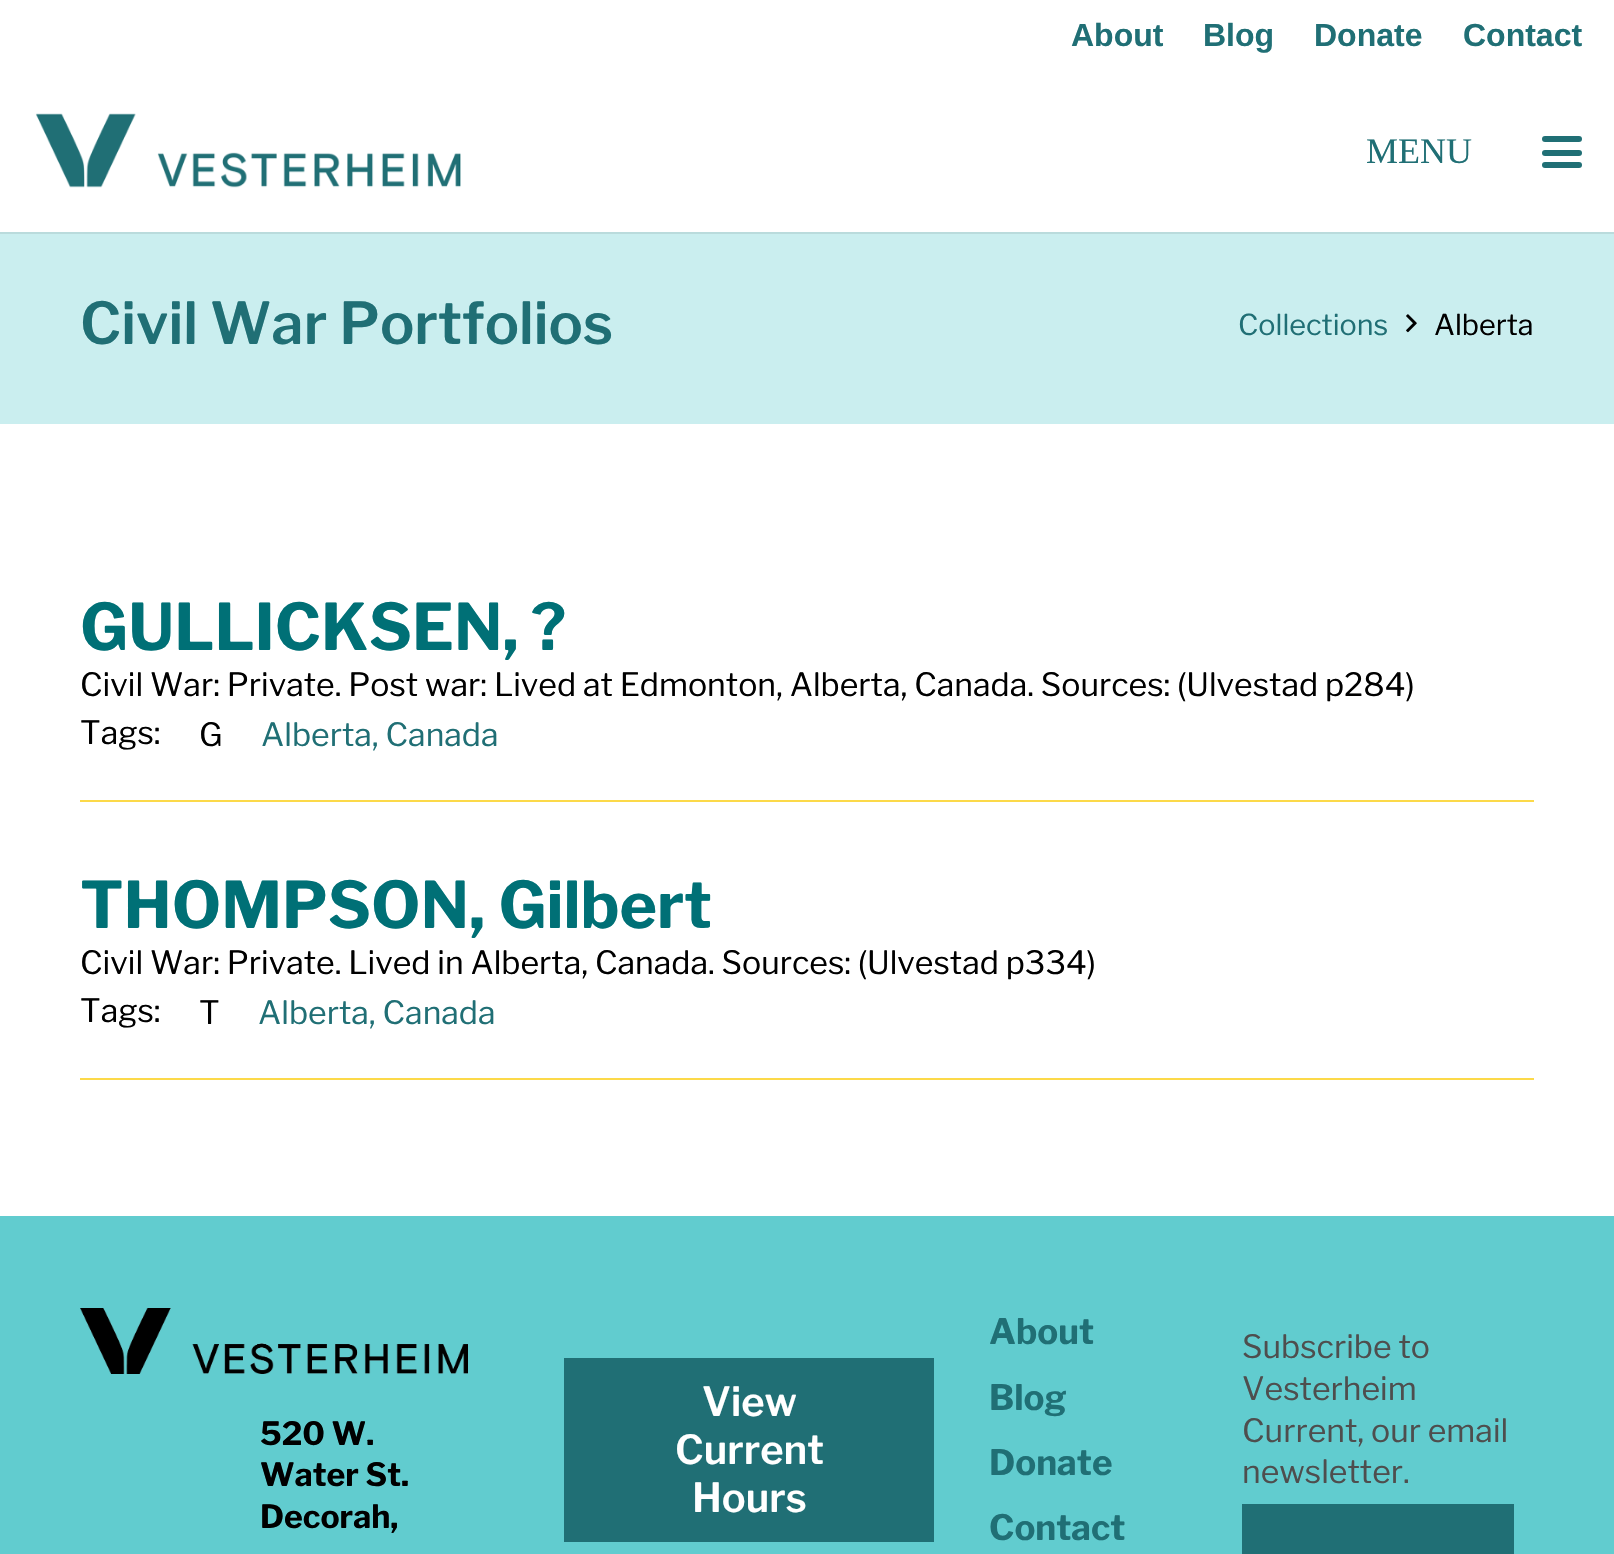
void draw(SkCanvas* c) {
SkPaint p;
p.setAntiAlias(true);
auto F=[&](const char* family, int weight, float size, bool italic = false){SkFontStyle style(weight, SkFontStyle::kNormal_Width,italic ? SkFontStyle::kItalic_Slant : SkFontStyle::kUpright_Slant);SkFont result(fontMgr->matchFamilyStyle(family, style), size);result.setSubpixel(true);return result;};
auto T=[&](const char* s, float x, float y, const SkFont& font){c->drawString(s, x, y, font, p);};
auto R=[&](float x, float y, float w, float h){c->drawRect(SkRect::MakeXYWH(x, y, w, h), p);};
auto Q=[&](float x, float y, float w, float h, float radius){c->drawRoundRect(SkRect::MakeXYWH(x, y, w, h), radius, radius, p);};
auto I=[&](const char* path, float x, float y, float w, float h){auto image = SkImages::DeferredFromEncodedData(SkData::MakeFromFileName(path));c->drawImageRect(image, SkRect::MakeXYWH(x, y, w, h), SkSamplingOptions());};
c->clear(0xffffffff);
auto f1 = F("Liberation Sans",700,32);
p.setColor(0xff206f75);
T("About",1071,46,f1);
T("Blog",1203,46,f1);
T("Donate",1314,46,f1);
T("Contact",1463,46,f1);
p.setColor(0xffbadbdc);
R(0,232,1614,2);
I("1.png",35,113,426,75);
auto f2 = F("Liberation Serif",400,36);
p.setColor(0xff206f75);
T("MENU",1366,163,f2);
Q(1542,150,40,6,3);
Q(1542,136,40,6,3);
Q(1542,162,40,6,3);
p.setColor(0xffcaeeef);
R(0,234,1614,190);
auto f3 = F("Libre Franklin",600,57.5);
p.setColor(0xff206f75);
T("Civil War Portfolios",80,344,f3);
auto f4 = F("Libre Franklin",400,28.75);
T("Collections",1238,335,f4);
I("2.png",1406,314,11,19);
p.setColor(0xff000000);
T("Alberta",1434,335,f4);
auto f5 = F("Libre Franklin",700,64);
p.setColor(0xff007076);
T("GULLICKSEN, ?",80,650,f5);
auto f6 = F("Libre Franklin",400,32);
p.setColor(0xff000000);
T("Civil War: Private. Post war: Lived at Edmonton, Alberta, Canada. Sources: (Ulvestad p284)",80,696,f6);
p.setColor(0xfffcd949);
R(80,800,1454,2);
p.setColor(0xff000000);
T("Tags:",80,744,f6);
T("G",199,746,f6);
p.setColor(0xff206f75);
T("Alberta, Canada",261,746,f6);
p.setColor(0xff007076);
T("THOMPSON, Gilbert",80,928,f5);
p.setColor(0xff000000);
T("Civil War: Private. Lived in Alberta, Canada. Sources: (Ulvestad p334)",80,974,f6);
p.setColor(0xfffcd949);
R(80,1078,1454,2);
p.setColor(0xff000000);
T("Tags:",80,1022,f6);
T("T",199,1024,f6);
p.setColor(0xff206f75);
T("Alberta, Canada",258,1024,f6);
p.setColor(0xff61cccf);
R(0,1216,1614,338);
I("3.png",80,1308,388,66);
auto f7 = F("Libre Franklin",700,32);
p.setColor(0xff000000);
T("520 W.",260,1445,f7);
T("Water St.",260,1486,f7);
T("Decorah,",260,1528,f7);
p.setColor(0xff206f75);
R(564,1358,370,184);
auto f8 = F("Libre Franklin",600,40);
p.setColor(0xffffffff);
T("View",702,1416,f8);
T("Current",675,1464,f8);
T("Hours",692,1512,f8);
auto f9 = F("Libre Franklin",700,35);
p.setColor(0xff206f75);
T("About",989,1344,f9);
T("Blog",989,1410,f9);
T("Donate",989,1475,f9);
T("Contact",989,1540,f9);
p.setColor(0xff4e4e4e);
T("Subscribe to",1242,1358,f6);
T("Vesterheim",1242,1400,f6);
T("Current, our email",1242,1442,f6);
T("newsletter.",1242,1483,f6);
p.setColor(0xff206f75);
R(1242,1504,272,50);
}
